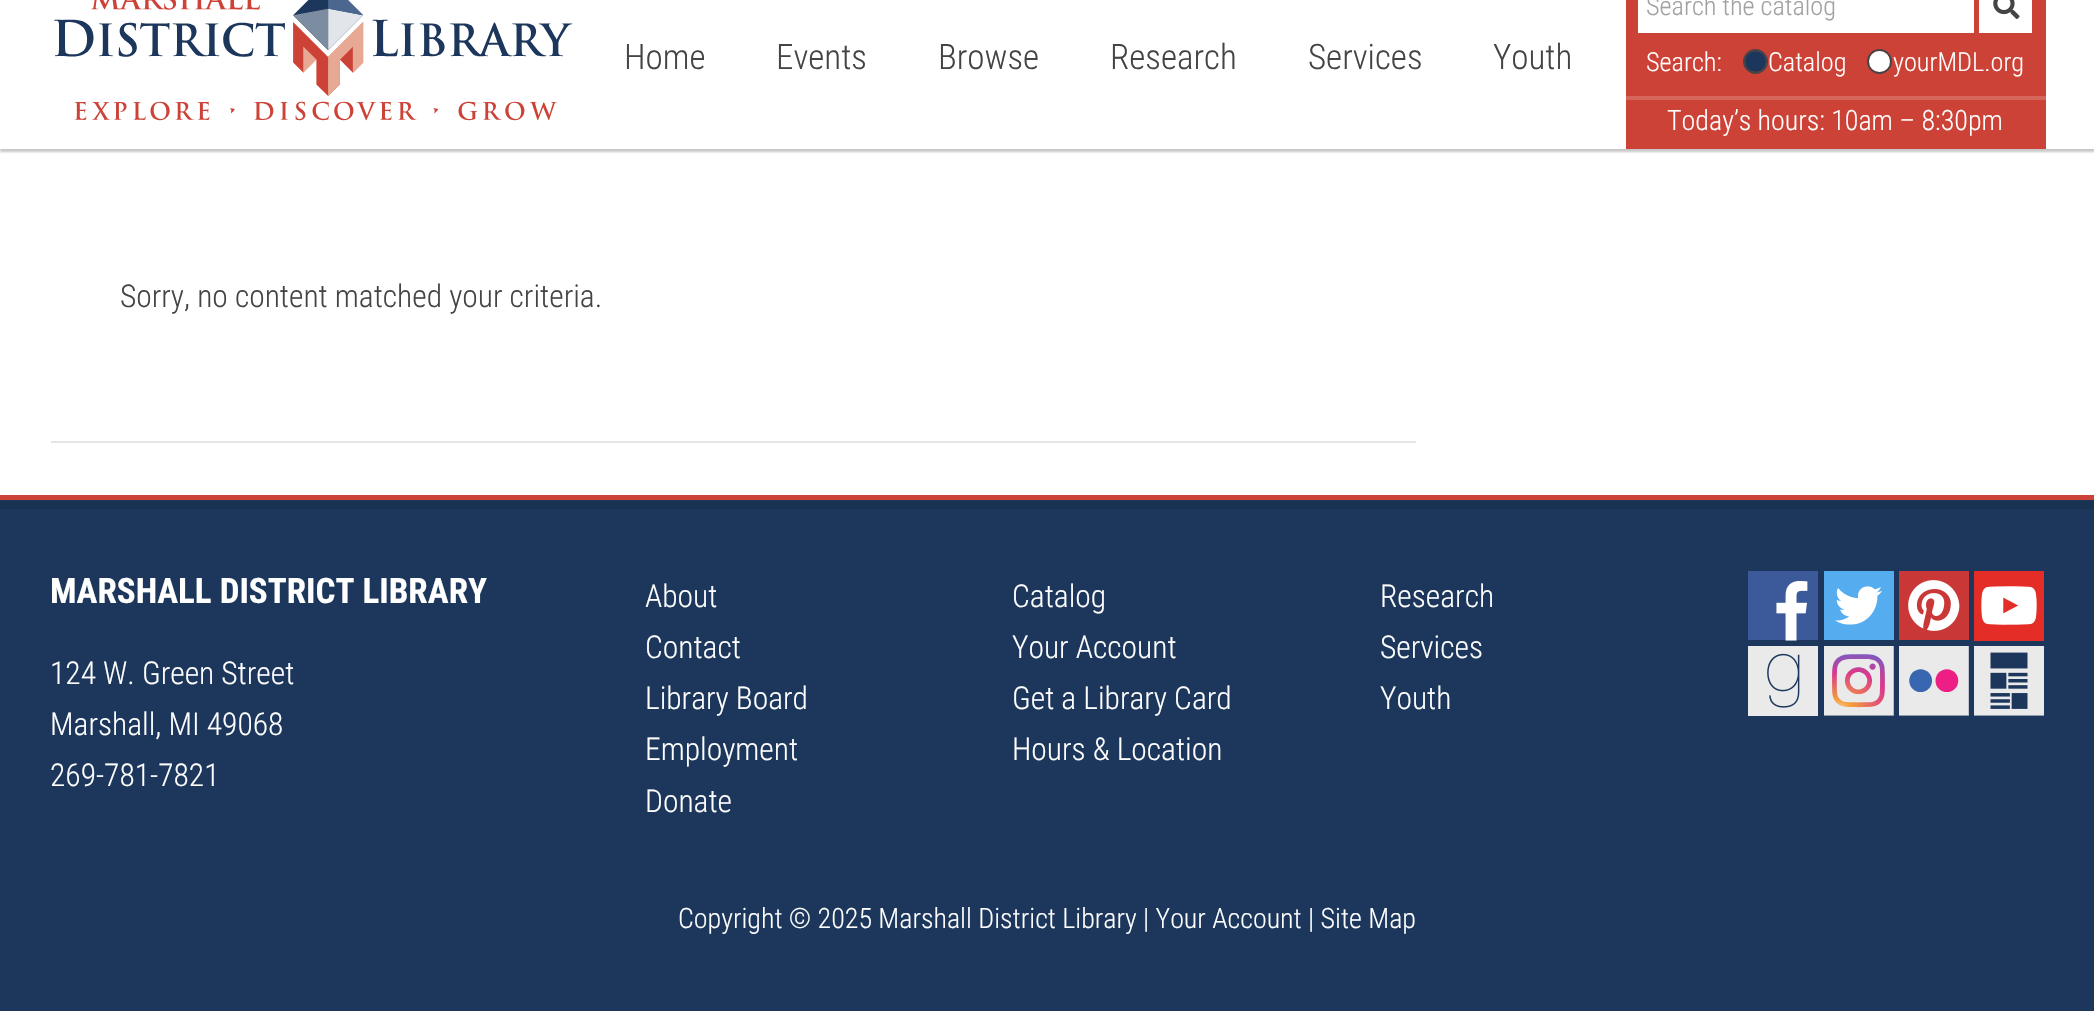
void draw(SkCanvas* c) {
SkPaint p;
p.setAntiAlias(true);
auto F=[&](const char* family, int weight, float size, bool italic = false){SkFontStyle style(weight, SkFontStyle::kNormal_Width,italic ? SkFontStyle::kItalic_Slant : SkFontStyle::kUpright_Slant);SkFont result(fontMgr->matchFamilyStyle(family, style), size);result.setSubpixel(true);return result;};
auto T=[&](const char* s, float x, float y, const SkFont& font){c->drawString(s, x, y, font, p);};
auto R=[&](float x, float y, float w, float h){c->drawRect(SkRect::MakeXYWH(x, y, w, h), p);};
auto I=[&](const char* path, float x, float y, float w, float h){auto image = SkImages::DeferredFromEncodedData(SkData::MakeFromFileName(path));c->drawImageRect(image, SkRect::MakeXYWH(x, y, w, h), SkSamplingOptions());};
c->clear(0xffffffff);
p.setColor(0x4d464646);
p.setMaskFilter(SkMaskFilter::MakeBlur(kNormal_SkBlurStyle, 1));
c->drawRect(SkRect::MakeXYWH(0,-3,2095,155),p);
p.setMaskFilter(nullptr);
p.setColor(0xffffffff);
R(0,0,2094,149);
I("1.png",54,0,519,121);
auto f1 = F("Roboto Condensed",300,35);
p.setColor(0xff444444);
T("Home",624,69,f1);
T("Events",776,69,f1);
T("Browse",938,69,f1);
T("Research",1110,69,f1);
T("Services",1308,69,f1);
T("Youth",1493,69,f1);
p.setColor(0xffcd4236);
R(1626,0,420,96);
p.setColor(0xffffffff);
R(1638,0,336,33);
auto f2 = F("Roboto Condensed",300,26.25);
p.setColor(0xffa1a1a1);
T("Search the catalog",1646,15,f2);
p.setColor(0xffffffff);
R(1979,0,53,33);
I("2.png",1993,0,27,19);
T("Search:",1646,71,f2);
p.setStroke(true);
p.setStrokeWidth(2);
p.setColor(0xff444444);
c->drawCircle(1755.5,61.5,11.5,p);
p.setStroke(false);
p.setColor(0xff1c375b);
c->drawCircle(1755.5,61.5,10.5,p);
p.setColor(0xffffffff);
T("Catalog",1768,71,f2);
p.setStroke(true);
p.setColor(0xff444444);
c->drawCircle(1879.5,61.5,11.5,p);
p.setStroke(false);
p.setColor(0xffffffff);
c->drawCircle(1879.5,61.5,10.5,p);
T("yourMDL.org",1893,71,f2);
p.setColor(0xffcd4236);
R(1626,100,420,49);
p.setColor(0xffd6655c);
R(1626,96,420,4);
auto f3 = F("Roboto Condensed",300,28);
p.setColor(0xffffffff);
T("Today’s hours: 10am – 8:30pm",1667,130,f3);
p.setColor(0xffe5e5e5);
R(51,441,1365,2);
auto f4 = F("Roboto Condensed",300,31.5);
p.setColor(0xff444444);
T("Sorry, no content matched your criteria.",120,307,f4);
p.setColor(0xff1c375b);
R(0,500,2094,511);
p.setColor(0xff193252);
R(0,501,2094,8);
p.setColor(0xffcd4236);
R(0,495,2094,5);
auto f5 = F("Roboto Condensed",700,35);
p.setColor(0xffffffff);
T("MARSHALL DISTRICT LIBRARY",50,603,f5);
T("124 W. Green Street",50,684,f4);
T("Marshall, MI 49068",50,735,f4);
T("269-781-7821",50,786,f4);
T("About",645,607,f4);
T("Contact",645,658,f4);
T("Library Board",645,709,f4);
T("Employment",645,760,f4);
T("Donate",645,812,f4);
T("Catalog",1012,607,f4);
T("Your Account",1012,658,f4);
T("Get a Library Card",1012,709,f4);
T("Hours & Location",1012,760,f4);
T("Research",1380,607,f4);
T("Services",1380,658,f4);
T("Youth",1380,709,f4);
I("3.png",1748,571,70,70);
I("4.png",1824,571,70,69);
I("5.png",1899,571,70,69);
I("6.png",1974,571,70,70);
I("7.png",1748,646,70,70);
I("8.png",1824,646,70,70);
I("9.png",1899,646,70,70);
I("10.png",1974,646,70,70);
T("Copyright © 2025 Marshall District Library | Your Account | Site Map",678,928,f3);
}
